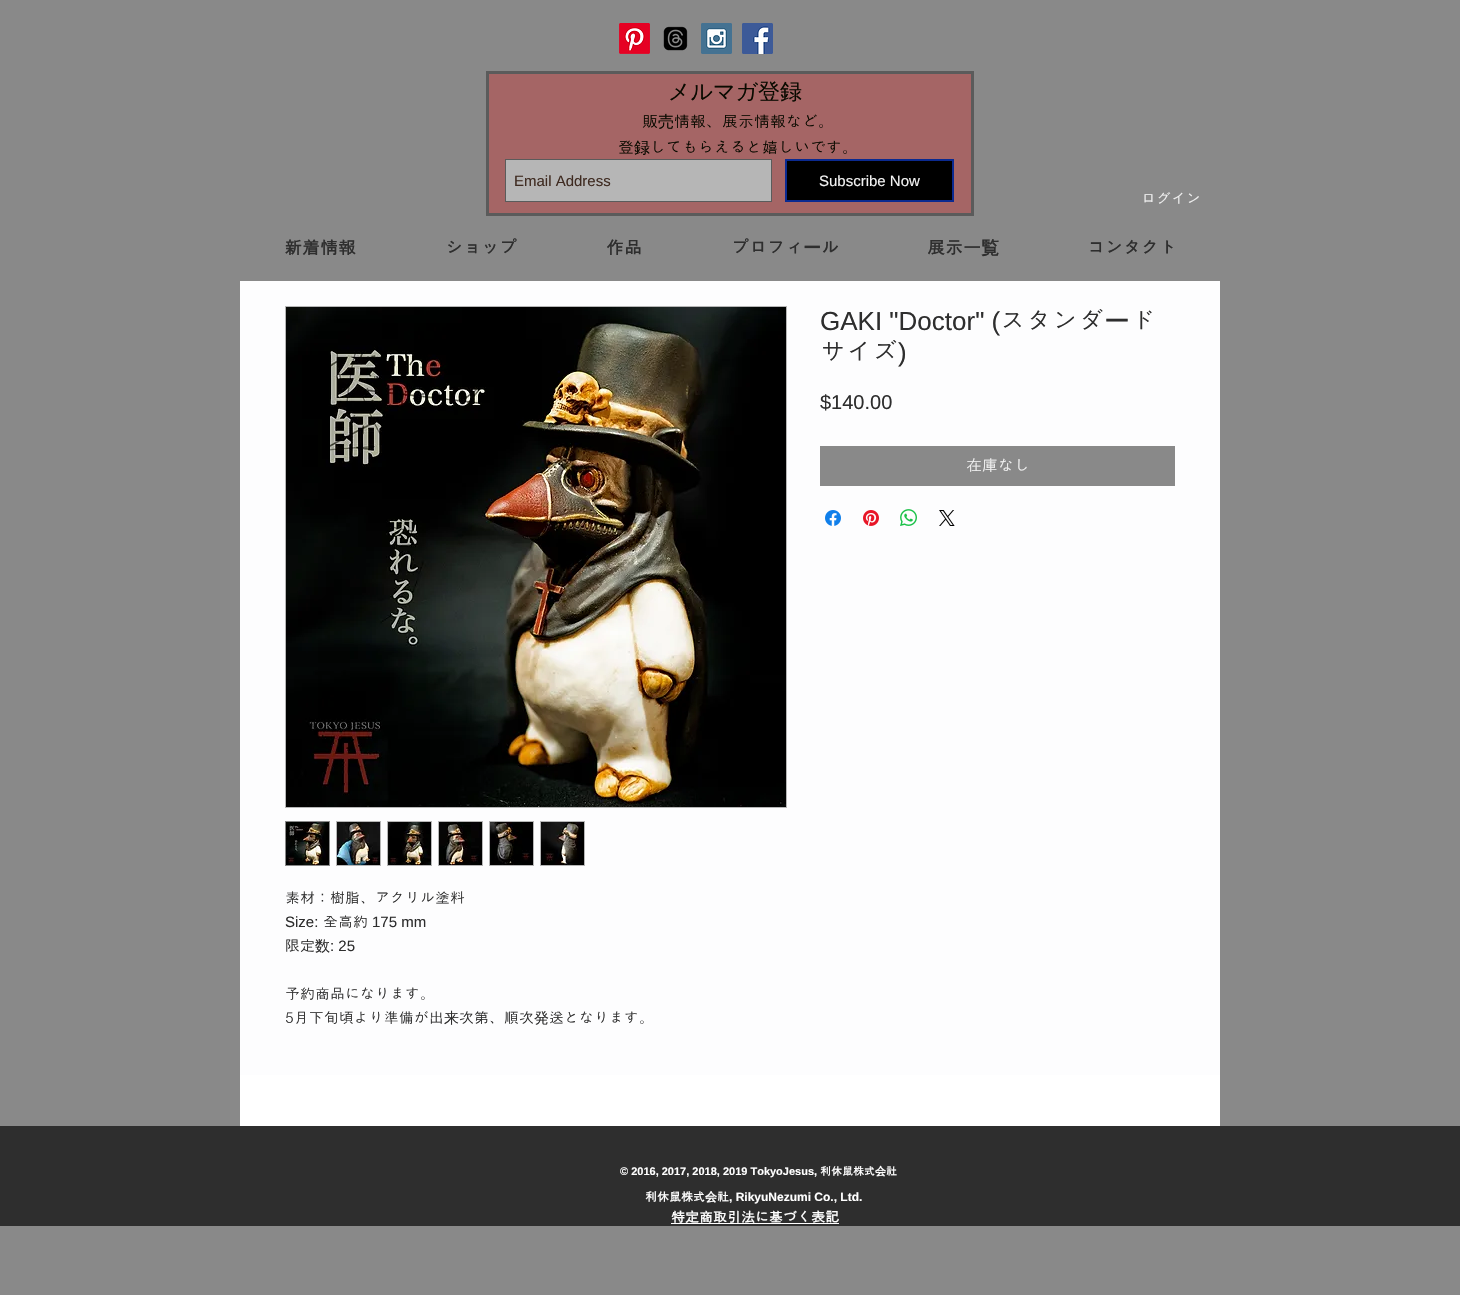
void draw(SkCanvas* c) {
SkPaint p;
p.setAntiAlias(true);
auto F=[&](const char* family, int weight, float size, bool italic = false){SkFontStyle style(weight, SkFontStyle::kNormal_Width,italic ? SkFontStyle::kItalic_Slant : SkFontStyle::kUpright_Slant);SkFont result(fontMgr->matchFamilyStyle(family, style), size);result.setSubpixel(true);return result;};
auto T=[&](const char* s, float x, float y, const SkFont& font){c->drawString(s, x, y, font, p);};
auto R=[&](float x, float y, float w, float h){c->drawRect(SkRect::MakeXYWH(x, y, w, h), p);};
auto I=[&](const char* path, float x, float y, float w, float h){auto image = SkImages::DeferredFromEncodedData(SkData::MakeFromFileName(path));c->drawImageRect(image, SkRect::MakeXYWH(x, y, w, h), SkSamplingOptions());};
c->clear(0xff898989);
I("1.png",619,23,31,31);
I("2.png",663,26,25,25);
I("3.png",701,23,31,31);
I("4.png",742,23,31,31);
p.setColor(0xffa56565);
c->drawRect(SkRect::MakeXYWH(487.5,72.5,485,142),p);
p.setStroke(true);
p.setStrokeWidth(3);
p.setColor(0xff5b5b5b);
c->drawRect(SkRect::MakeXYWH(487.5,72.5,485,142),p);
auto f1 = F("WenQuanYi Zen Hei",500,22);
p.setStroke(false);
p.setColor(0xff0a0a00);
T("メルマガ登録",668,99,f1);
auto f2 = F("Dotum",400,16);
T("販",642,127,f2);
auto f3 = F("WenQuanYi Zen Hei",500,16);
T("売",658,127,f3);
T("情報、展示情報など。",674,127,f2);
T("登",618,153,f2);
T("録",634,153,f3);
T("してもらえると嬉しいです。",650,153,f2);
p.setColor(0xffb6b6b6);
c->drawRect(SkRect::MakeXYWH(505.5,159.5,266,42),p);
p.setStroke(true);
p.setStrokeWidth(1);
p.setColor(0xff5b5b5b);
c->drawRect(SkRect::MakeXYWH(505.5,159.5,266,42),p);
auto f4 = F("Liberation Sans",400,15);
p.setStroke(false);
p.setColor(0xff3f2b21);
T("Email Address",514,186,f4);
p.setColor(0xff000000);
c->drawRect(SkRect::MakeXYWH(786,160,167,41),p);
p.setStroke(true);
p.setStrokeWidth(2);
p.setColor(0xff0b2a90);
c->drawRect(SkRect::MakeXYWH(786,160,167,41),p);
p.setStroke(false);
p.setColor(0xfff2f2f2);
T("Subscribe Now",819,186,f4);
auto f5 = F("Dotum",400,15);
T("ログイン",1141,204,f5);
auto f6 = F("Dotum",700,18);
p.setColor(0xff2e2e2e);
T("新着情報",284,254,f6);
T("ショップ",445,254,f6);
T("作品",606,254,f6);
T("プロフィ",731,254,f6);
auto f7 = F("WenQuanYi Zen Hei",700,18);
T("ー",803,254,f7);
T("ル",821,254,f6);
T("展示一",927,254,f6);
T("覧",981,254,f7);
T("コンタクト",1087,254,f6);
p.setColor(0xfffdfdfe);
R(240,281,980,794);
auto f8 = F("Liberation Sans",400,26);
p.setColor(0xff2e2e2e);
T("GAKI \"Doctor\" (",820,330,f8);
auto f9 = F("Dotum",400,26);
T("スタンダ",1000,330,f9);
auto f10 = F("WenQuanYi Zen Hei",500,26);
T("ー",1104,330,f10);
T("ド",1130,330,f9);
T("サイズ",820,361,f9);
T(")",898,361,f8);
auto f11 = F("Liberation Sans",400,20);
T("$140.00",820,409,f11);
p.setColor(0xff898989);
R(820,446,355,40);
p.setColor(0xfff2f2f2);
T("在庫なし",966,471,f2);
I("5.png",825,510,16,16);
I("6.png",863,510,16,16);
I("7.png",900,509,17,17);
I("8.png",939,510,16,16);
p.setStroke(true);
p.setStrokeWidth(1);
p.setColor(0xffb6b6b6);
c->drawRect(SkRect::MakeXYWH(285.5,306.5,501,501),p);
I("9.png",286,307,500,500);
p.setColor(0xff898989);
c->drawRect(SkRect::MakeXYWH(285.5,821.5,44,44),p);
I("10.png",286,822,43,43);
p.setStroke(false);
p.setColor(0xffb6b6b6);
R(336,821,45,45);
I("11.png",337,822,43,43);
R(387,821,45,45);
I("12.png",388,822,43,43);
R(438,821,45,45);
I("13.png",439,822,43,43);
R(489,821,45,45);
I("14.png",490,822,43,43);
R(540,821,45,45);
I("15.png",541,822,43,43);
p.setColor(0xff2e2e2e);
T("素材：樹脂、アクリル塗料",285,903,f5);
T("Size:",285,927,f4);
T("全高約",323,927,f5);
T("175 mm",372,927,f4);
T("限定",285,951,f5);
auto f12 = F("WenQuanYi Zen Hei",500,15);
T("数",315,951,f12);
T(": 25",330,951,f4);
T("予約商品になります。",285,999,f5);
T("5月下旬頃より準備が出",285,1023,f5);
T("来",444,1023,f12);
T("次第、順次",459,1023,f5);
T("発",534,1023,f12);
T("送となります。",549,1023,f5);
p.setColor(0xffffffff);
R(240,1075,980,51);
p.setColor(0xff2e2e2e);
R(0,1126,1460,100);
auto f13 = F("Liberation Sans",700,11);
p.setColor(0xffffffff);
T("© 2016, 2017, 2018, 2019 TokyoJesus,",620,1175,f13);
auto f14 = F("Dotum",700,11);
T("利休鼠株式",820,1175,f14);
auto f15 = F("WenQuanYi Zen Hei",700,11);
T("会",875,1175,f15);
T("社",886,1175,f14);
auto f16 = F("Dotum",700,12);
T("利休鼠株式",645,1201,f16);
auto f17 = F("WenQuanYi Zen Hei",700,12);
T("会",705,1201,f17);
T("社",717,1201,f16);
auto f18 = F("Liberation Sans",700,12);
T(", RikyuNezumi Co., Ltd.",729,1201,f18);
auto f19 = F("Dotum",700,14);
T("特定商取引法に基づく表記",671,1222,f19);
R(671,1223,168,1);
}
